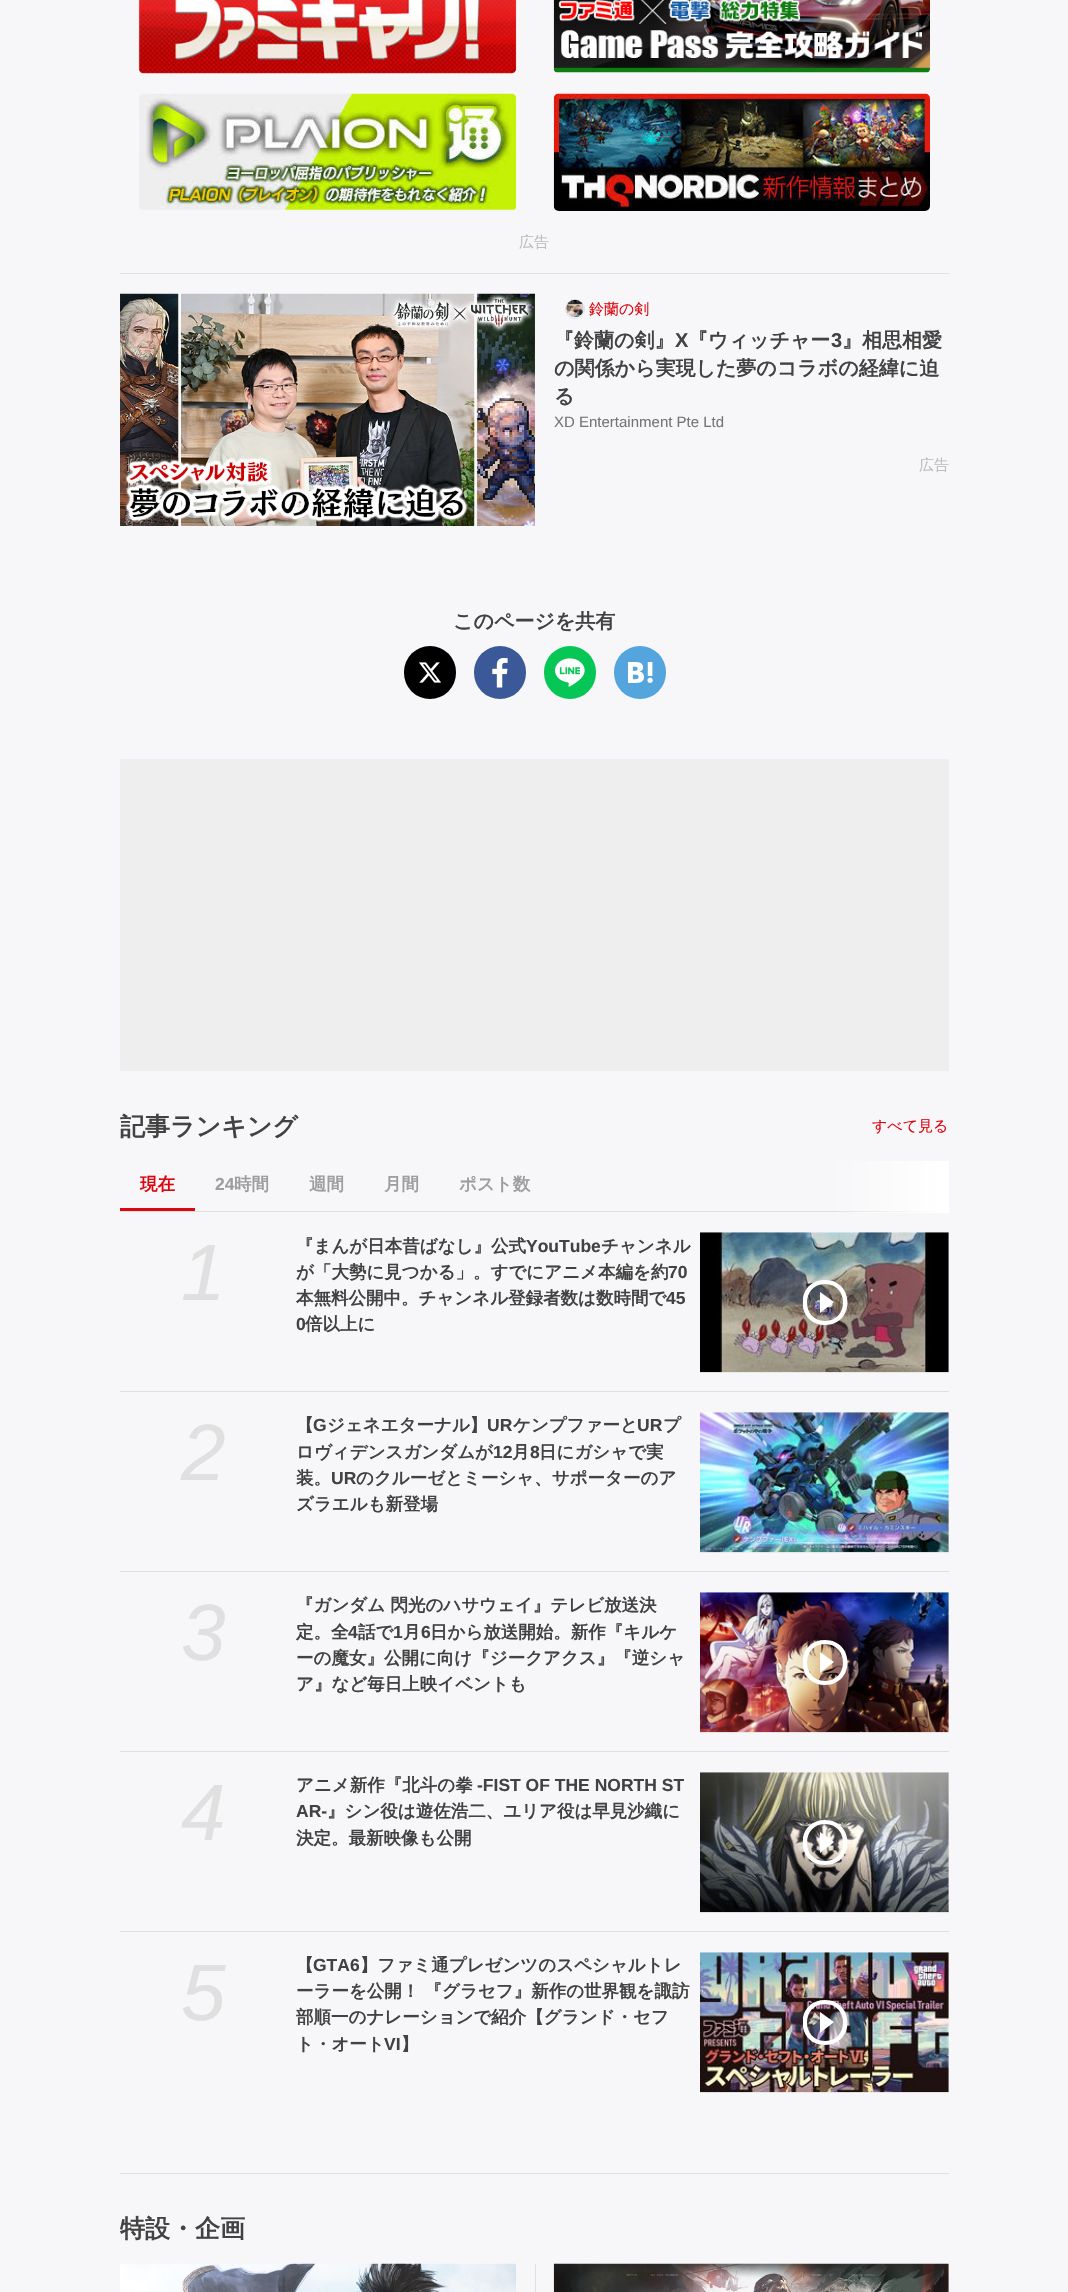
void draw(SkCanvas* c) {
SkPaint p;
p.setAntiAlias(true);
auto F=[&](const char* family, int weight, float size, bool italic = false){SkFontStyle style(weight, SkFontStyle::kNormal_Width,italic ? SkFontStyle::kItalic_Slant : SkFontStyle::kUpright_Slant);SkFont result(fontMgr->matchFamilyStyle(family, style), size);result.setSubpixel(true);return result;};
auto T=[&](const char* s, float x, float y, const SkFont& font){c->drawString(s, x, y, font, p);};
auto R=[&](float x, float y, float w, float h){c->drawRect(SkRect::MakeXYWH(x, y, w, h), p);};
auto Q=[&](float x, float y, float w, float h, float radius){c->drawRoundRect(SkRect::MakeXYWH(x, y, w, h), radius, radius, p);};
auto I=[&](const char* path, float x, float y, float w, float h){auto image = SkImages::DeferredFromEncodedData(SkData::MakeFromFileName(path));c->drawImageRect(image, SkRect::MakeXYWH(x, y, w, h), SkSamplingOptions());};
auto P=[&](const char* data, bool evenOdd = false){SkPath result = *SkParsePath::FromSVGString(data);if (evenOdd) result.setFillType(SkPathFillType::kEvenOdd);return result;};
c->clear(0xfff7f7f9);
I("1.png",138,0,379,74);
I("2.png",553,0,377,73);
I("3.png",139,93,378,117);
I("4.png",553,93,377,118);
auto f1 = F("WenQuanYi Zen Hei",500,15);
p.setColor(0xffbdbdbd);
T("広告",519,247,f1);
p.setColor(0xffe0e0e0);
R(120,273,829,1);
I("5.png",120,293,415,233);
p.setColor(0xffffffff);
c->drawCircle(575,309,9.5,p);
p.setStroke(true);
p.setStrokeWidth(1);
p.setColor(0xffdee2e6);
c->drawCircle(575,309,9.5,p);
I("6.png",566,299,18,19);
p.setStroke(false);
p.setColor(0xffdc0610);
T("鈴蘭の剣",589,314,f1);
auto f2 = F("WenQuanYi Zen Hei",700,20);
p.setColor(0xff424242);
T("『鈴蘭の剣』",554,347,f2);
auto f3 = F("Liberation Sans",700,20);
T("X",675,347,f3);
T("『ウィッチャー",688,347,f2);
T("3",831,347,f3);
T("』相思相愛",842,347,f2);
T("の関係から実現した夢のコラボの経緯に迫",554,375,f2);
T("る",554,403,f2);
auto f4 = F("Liberation Sans",400,15);
p.setColor(0xff757575);
T("XD Entertainment Pte Ltd",554,427,f4);
p.setColor(0xffbdbdbd);
T("広告",919,470,f1);
p.setColor(0xff424242);
T("このページを共有",453,628,f2);
p.setColor(0xff000000);
Q(404,646,52,53,26);
I("7.png",419,662,22,21);
p.setColor(0xff3b5998);
Q(474,646,52,53,26);
I("8.png",492,658,16,30);
p.setColor(0xff06c755);
Q(544,646,52,53,26);
I("9.png",555,658,30,29);
p.setColor(0xff54a5de);
Q(614,646,52,53,26);
I("10.png",628,662,25,21);
p.setColor(0xffeeeeee);
R(120,759,829,312);
auto f5 = F("WenQuanYi Zen Hei",700,25);
p.setColor(0xff424242);
T("記事ランキング",120,1135,f5);
p.setColor(0xffdc0610);
T("すべて見る",872,1131,f1);
p.setColor(0xffe0e0e0);
R(120,1211,829,1);
p.setColor(0xffdc0610);
R(120,1208,75,3);
auto f6 = F("WenQuanYi Zen Hei",700,17.5);
T("現在",140,1190,f6);
auto f7 = F("Liberation Sans",700,17.5);
p.setColor(0xff9e9e9e);
T("24",215,1190,f7);
T("時間",234,1190,f6);
T("週間",309,1190,f6);
T("月間",384,1190,f6);
T("ポスト数",459,1190,f6);
{
const SkColor colors[] = {0x00ffffff,0xffffffff};
const float stops[] = {0,1};
const SkPoint ends[] = {{825,1187}, {949,1187}};
p.setShader(SkGradientShader::MakeLinear(ends, colors, stops, 2, SkTileMode::kClamp));
p.setAlpha(255);
}
R(835,1161,114,52);
auto f8 = F("Liberation Sans",400,80,true);
p.setShader(nullptr);
p.setColor(0xffe0e0e0);
T("1",181,1300,f8);
p.setColor(0xff424242);
T("『まんが日本昔ばなし』公式",296,1252,f6);
T("YouTube",526,1252,f7);
T("チャンネル",601,1252,f6);
T("が「大勢に見つかる」。すでにアニメ本編を約",296,1278,f6);
T("70",668,1278,f7);
T("本無料公開中。チャンネル登録者数は数時間で",296,1304,f6);
T("45",666,1304,f7);
T("0",296,1330,f7);
T("倍以上に",305,1330,f6);
p.setColor(0xffeeeeee);
R(700,1233,249,140);
I("11.png",700,1232,249,141);
c->save();
c->clipRect(SkRect::MakeXYWH(803,1280,45,45));
p.setColor(0xffffffff);
c->drawPath(P("M825 1321c24 0 24-37 0-37c-24 0-24 37 0 37zm0-41c30 0 30 45 0 45c-30 0-30-45 0-45zm-5 33v-21l14 10z"),p);
c->restore();
p.setColor(0xffe0e0e0);
R(120,1391,829,1);
T("2",181,1480,f8);
p.setColor(0xff424242);
T("【",296,1431,f6);
T("G",313,1431,f7);
T("ジェネエターナル】",327,1431,f6);
T("UR",487,1431,f7);
T("ケンプファーと",513,1431,f6);
T("UR",637,1431,f7);
T("プ",663,1431,f6);
T("ロヴィデンスガンダムが",296,1458,f6);
T("12",493,1458,f7);
T("月",512,1458,f6);
T("8",530,1458,f7);
T("日にガシャで実",539,1458,f6);
T("装。",296,1484,f6);
T("UR",331,1484,f7);
T("のクルーゼとミーシャ、サポーターのア",356,1484,f6);
T("ズラエルも新登場",296,1510,f6);
p.setColor(0xffeeeeee);
R(700,1413,249,140);
I("12.png",700,1412,249,141);
p.setColor(0xffe0e0e0);
R(120,1571,829,1);
T("3",181,1660,f8);
p.setColor(0xff424242);
T("『ガンダム 閃光のハサウェイ』テレビ放送決",296,1611,f6);
T("定。全",296,1638,f6);
T("4",348,1638,f7);
T("話で",358,1638,f6);
T("1",393,1638,f7);
T("月",403,1638,f6);
T("6",421,1638,f7);
T("日から放送開始。新作『キルケ",430,1638,f6);
T("ーの魔女』公開に向け『ジークアクス』『逆シャ",296,1664,f6);
T("ア』など毎日上映イベントも",296,1690,f6);
p.setColor(0xffeeeeee);
R(700,1593,249,140);
I("13.png",700,1592,249,141);
c->save();
c->clipRect(SkRect::MakeXYWH(803,1640,45,45));
p.setColor(0xffffffff);
c->drawPath(P("M825 1681c24 0 24-37 0-37c-24 0-24 37 0 37zm0-41c30 0 30 45 0 45c-30 0-30-45 0-45zm-5 33v-21l14 10z"),p);
c->restore();
p.setColor(0xffe0e0e0);
R(120,1751,829,1);
T("4",181,1840,f8);
p.setColor(0xff424242);
T("アニメ新作『北斗の拳",296,1791,f6);
T("-FIST OF THE NORTH ST",477,1791,f7);
T("AR-",296,1817,f7);
T("』シン役は遊佐浩二、ユリア役は早見沙織に",327,1817,f6);
T("決定。最新映像も公開",296,1844,f6);
p.setColor(0xffeeeeee);
R(700,1773,249,140);
I("14.png",700,1772,249,141);
c->save();
c->clipRect(SkRect::MakeXYWH(803,1820,45,45));
p.setColor(0xffffffff);
c->drawPath(P("M825 1861c24 0 24-37 0-37c-24 0-24 37 0 37zm0-41c30 0 30 45 0 45c-30 0-30-45 0-45zm-5 33v-21l14 10z"),p);
c->restore();
p.setColor(0xffe0e0e0);
R(120,1931,829,1);
T("5",181,2020,f8);
p.setColor(0xff424242);
T("【",296,1971,f6);
T("GTA6",313,1971,f7);
T("】ファミ通プレゼンツのスペシャルトレ",360,1971,f6);
T("ーラーを公開！ 『グラセフ』新作の世界観を諏訪",296,1997,f6);
T("部順一のナレーションで紹介【グランド・セフ",296,2023,f6);
T("ト・オート",296,2050,f6);
T("VI",384,2050,f7);
T("】",401,2050,f6);
p.setColor(0xffeeeeee);
R(700,1953,249,140);
I("15.png",700,1952,249,141);
c->save();
c->clipRect(SkRect::MakeXYWH(803,2000,45,45));
p.setColor(0xffffffff);
c->drawPath(P("M825 2041c24 0 24-37 0-37c-24 0-24 37 0 37zm0-41c30 0 30 45 0 45c-30 0-30-45 0-45zm-5 33v-21l14 10z"),p);
c->restore();
p.setColor(0xffe0e0e0);
R(120,2173,829,1);
p.setColor(0xff424242);
T("特設・企画",120,2237,f5);
I("16.png",120,2263,396,29);
p.setColor(0xffe0e0e0);
R(535,2264,1,28);
p.setColor(0xffeeeeee);
R(948,2264,1,28);
I("17.png",553,2263,396,29);
}
